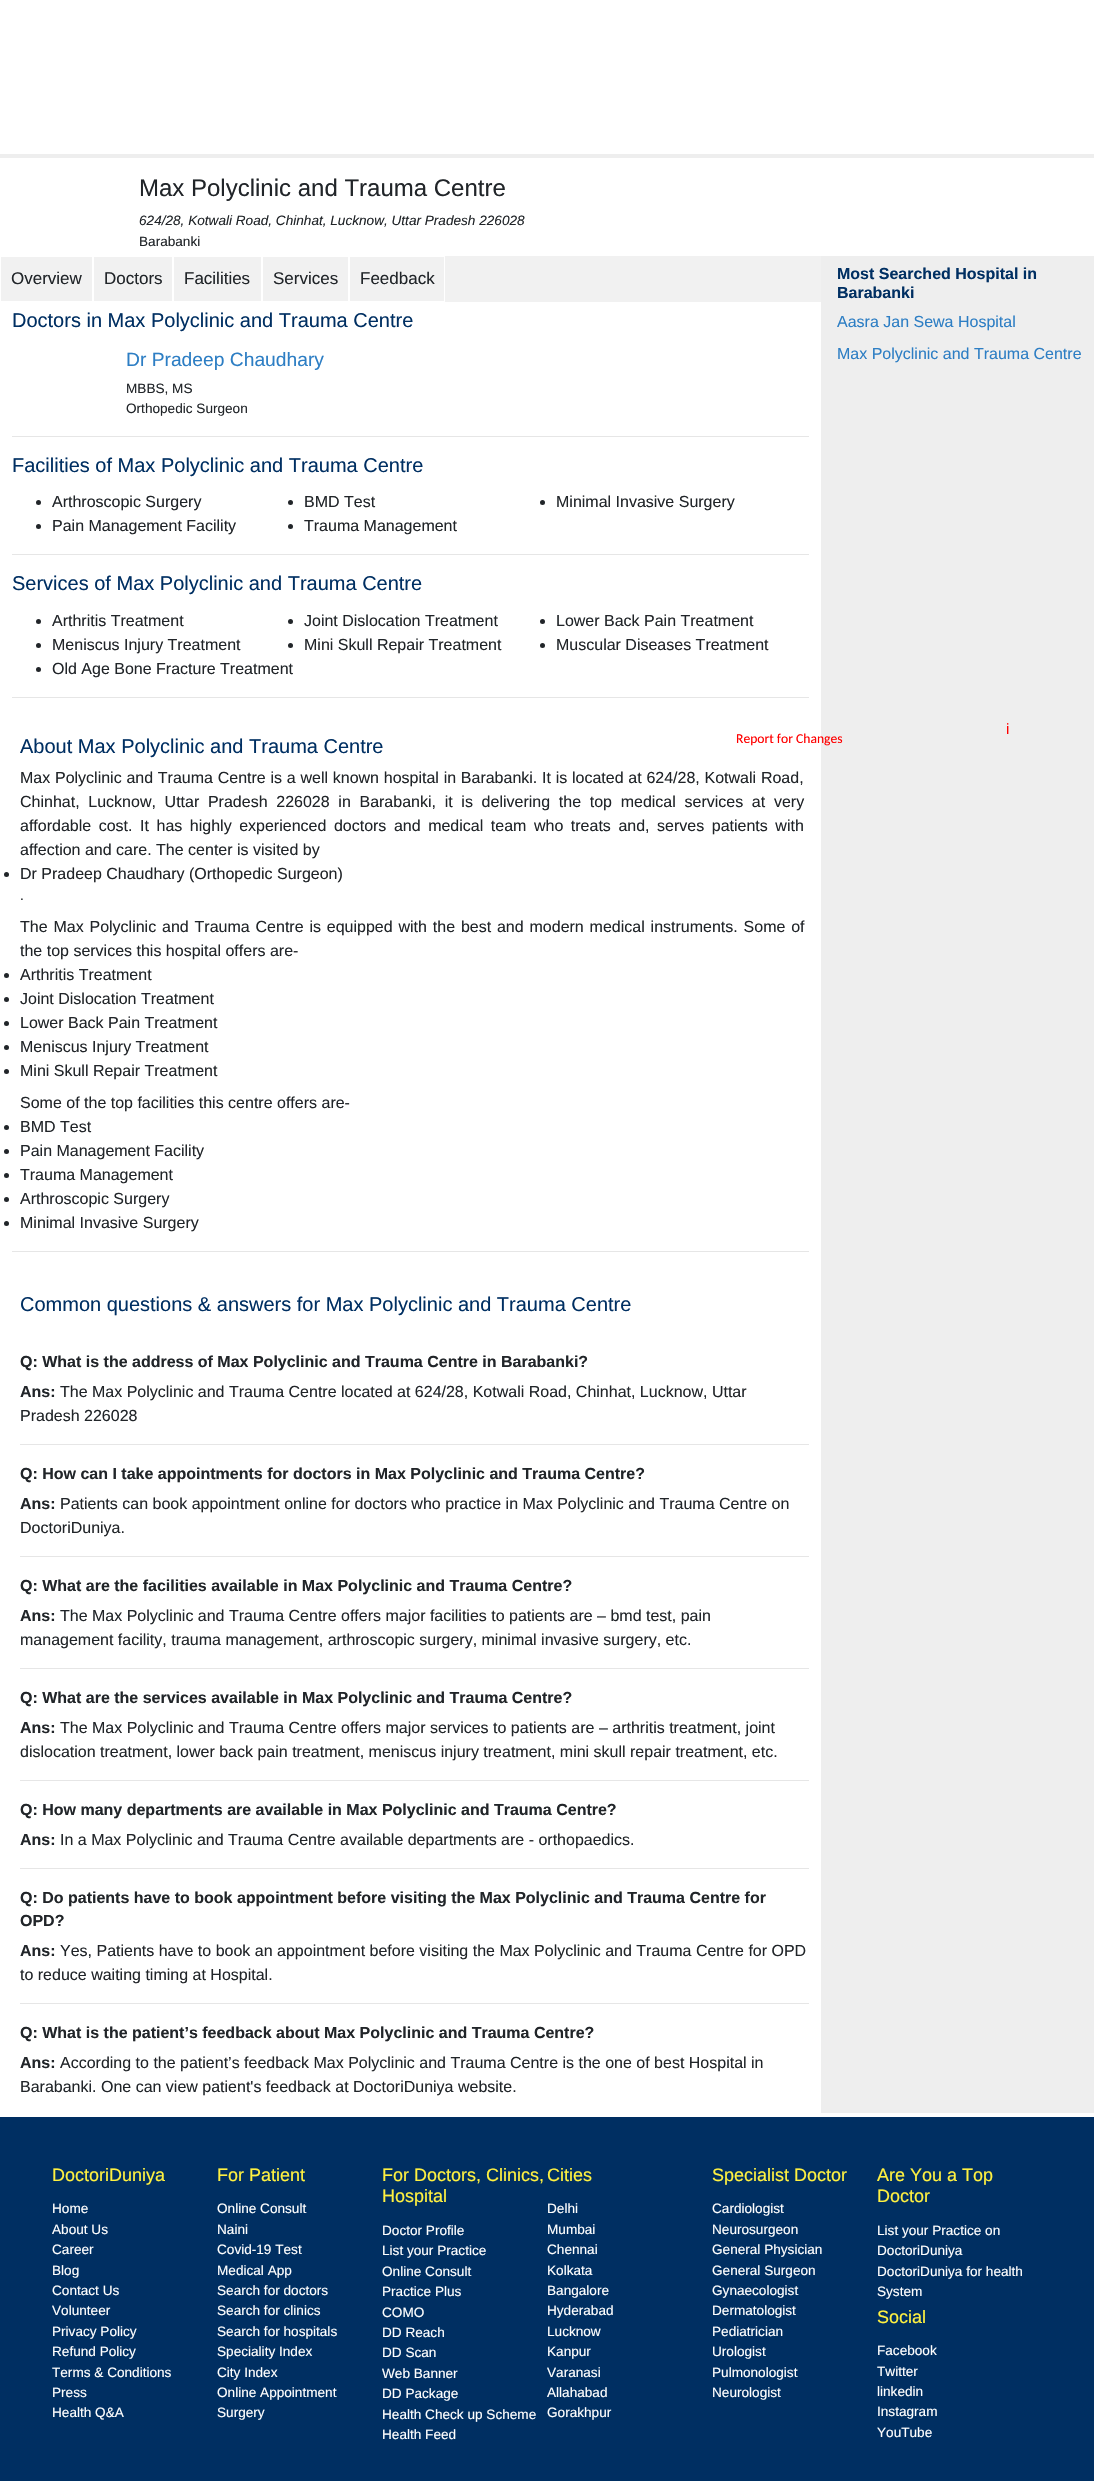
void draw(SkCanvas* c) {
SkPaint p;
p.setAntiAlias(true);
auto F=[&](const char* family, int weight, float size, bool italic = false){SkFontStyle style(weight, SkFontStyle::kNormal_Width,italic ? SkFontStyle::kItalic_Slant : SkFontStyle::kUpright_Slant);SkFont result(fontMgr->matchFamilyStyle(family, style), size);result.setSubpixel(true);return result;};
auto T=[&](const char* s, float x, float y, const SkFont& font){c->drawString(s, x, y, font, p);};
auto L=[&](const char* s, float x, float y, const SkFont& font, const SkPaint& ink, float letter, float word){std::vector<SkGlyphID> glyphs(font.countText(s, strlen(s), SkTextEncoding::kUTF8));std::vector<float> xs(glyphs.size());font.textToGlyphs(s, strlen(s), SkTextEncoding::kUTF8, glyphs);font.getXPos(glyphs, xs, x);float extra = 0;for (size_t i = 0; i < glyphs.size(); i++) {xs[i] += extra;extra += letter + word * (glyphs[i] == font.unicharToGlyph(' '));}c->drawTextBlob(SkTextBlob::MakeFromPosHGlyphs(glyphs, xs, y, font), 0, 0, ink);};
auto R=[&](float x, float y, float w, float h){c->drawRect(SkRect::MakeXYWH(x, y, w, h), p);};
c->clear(0xffffffff);
p.setColor(0xffeeeeee);
R(0,154,1094,1959);
p.setColor(0xffffffff);
R(0,158,1094,98);
auto f1 = F("Liberation Sans",400,24);
p.setColor(0xff212529);
T("Max Polyclinic and Trauma Centre",139,196,f1);
auto f2 = F("Liberation Sans",400,13.6,true);
T("624/28, Kotwali Road, Chinhat, Lucknow, Uttar Pradesh 226028",139,225,f2);
auto f3 = F("Liberation Sans",400,13.6);
T("Barabanki",139,246,f3);
auto f4 = F("Liberation Sans",700,16);
p.setColor(0xff002f62);
T("Most Searched Hospital in",837,279,f4);
T("Barabanki",837,298,f4);
auto f5 = F("Liberation Sans",400,16);
p.setColor(0xff2d7ec4);
T("Aasra Jan Sewa Hospital",837,327,f5);
T("Max Polyclinic and Trauma Centre",837,359,f5);
p.setColor(0xffffffff);
R(0,302,821,1811);
p.setColor(0xfff1f1f1);
R(1,256,820,46);
p.setStroke(true);
p.setStrokeWidth(1);
p.setColor(0xffffffff);
c->drawRect(SkRect::MakeXYWH(.5,256.5,92,45),p);
auto f6 = F("Liberation Sans",400,17);
p.setStroke(false);
p.setColor(0xff212529);
T("Overview",11,284,f6);
p.setStroke(true);
p.setColor(0xffffffff);
c->drawRect(SkRect::MakeXYWH(93.5,256.5,79,45),p);
p.setStroke(false);
p.setColor(0xff212529);
T("Doctors",104,284,f6);
p.setStroke(true);
p.setColor(0xffffffff);
c->drawRect(SkRect::MakeXYWH(173.5,256.5,88,45),p);
p.setStroke(false);
p.setColor(0xff212529);
T("Facilities",184,284,f6);
p.setStroke(true);
p.setColor(0xffffffff);
c->drawRect(SkRect::MakeXYWH(262.5,256.5,86,45),p);
p.setStroke(false);
p.setColor(0xff212529);
T("Services",273,284,f6);
p.setStroke(true);
p.setColor(0xffffffff);
c->drawRect(SkRect::MakeXYWH(349.5,256.5,95,45),p);
p.setStroke(false);
p.setColor(0xff212529);
T("Feedback",360,284,f6);
auto f7 = F("Liberation Sans",400,20);
p.setColor(0xff002f62);
T("Doctors in Max Polyclinic and Trauma Centre",12,327,f7);
auto f8 = F("Liberation Sans",400,19.25);
p.setColor(0xff2d7ec4);
T("Dr Pradeep Chaudhary",126,366,f8);
p.setColor(0xff212529);
T("MBBS, MS",126,393,f3);
T("Orthopedic Surgeon",126,413,f3);
p.setColor(0xffe6e6e6);
R(12,436,797,1);
p.setColor(0xff002f62);
T("Facilities of Max Polyclinic and Trauma Centre",12,472,f7);
p.setColor(0xff212529);
c->drawCircle(38.5,502.5,2.5,p);
T("Arthroscopic Surgery",52,507,f5);
c->drawCircle(290.5,502.5,2.5,p);
T("BMD Test",304,507,f5);
c->drawCircle(542.5,502.5,2.5,p);
T("Minimal Invasive Surgery",556,507,f5);
c->drawCircle(38.5,526.5,2.5,p);
T("Pain Management Facility",52,531,f5);
c->drawCircle(290.5,526.5,2.5,p);
T("Trauma Management",304,531,f5);
p.setColor(0xffe6e6e6);
R(12,554,797,1);
p.setColor(0xff002f62);
T("Services of Max Polyclinic and Trauma Centre",12,590,f7);
p.setColor(0xff212529);
c->drawCircle(38.5,621.5,2.5,p);
T("Arthritis Treatment",52,626,f5);
c->drawCircle(290.5,621.5,2.5,p);
T("Joint Dislocation Treatment",304,626,f5);
c->drawCircle(542.5,621.5,2.5,p);
T("Lower Back Pain Treatment",556,626,f5);
c->drawCircle(38.5,645.5,2.5,p);
T("Meniscus Injury Treatment",52,650,f5);
c->drawCircle(290.5,645.5,2.5,p);
T("Mini Skull Repair Treatment",304,650,f5);
c->drawCircle(542.5,645.5,2.5,p);
T("Muscular Diseases Treatment",556,650,f5);
c->drawCircle(38.5,669.5,2.5,p);
T("Old Age Bone Fracture Treatment",52,674,f5);
p.setColor(0xffe6e6e6);
R(12,697,797,1);
auto f9 = F("Liberation Sans",400,15);
p.setColor(0xffff0000);
T("i",1006,734,f9);
auto f10 = F("Carlito",400,13.6);
T("Report for Changes",736,743,f10);
p.setColor(0xff002f62);
T("About Max Polyclinic and Trauma Centre",20,753,f7);
p.setColor(0xff212529);
L("Max Polyclinic and Trauma Centre is a well known hospital in Barabanki. It is located at 624/28, Kotwali Road,",20,783,f5,p,0,.3);
L("Chinhat, Lucknow, Uttar Pradesh 226028 in Barabanki, it is delivering the top medical services at very",20,807,f5,p,0,4.25);
L("affordable cost. It has highly experienced doctors and medical team who treats and, serves patients with",20,831,f5,p,0,3.1);
T("affection and care. The center is visited by",20,855,f5);
c->drawCircle(6.5,874.5,2.5,p);
T("Dr Pradeep Chaudhary (Orthopedic Surgeon)",20,879,f5);
T(".",20,900,f3);
L("The Max Polyclinic and Trauma Centre is equipped with the best and modern medical instruments. Some of",20,932,f5,p,0,1.4);
T("the top services this hospital offers are-",20,956,f5);
c->drawCircle(6.5,975.5,2.5,p);
T("Arthritis Treatment",20,980,f5);
c->drawCircle(6.5,999.5,2.5,p);
T("Joint Dislocation Treatment",20,1004,f5);
c->drawCircle(6.5,1023.5,2.5,p);
T("Lower Back Pain Treatment",20,1028,f5);
c->drawCircle(6.5,1047.5,2.5,p);
T("Meniscus Injury Treatment",20,1052,f5);
c->drawCircle(6.5,1071.5,2.5,p);
T("Mini Skull Repair Treatment",20,1076,f5);
T("Some of the top facilities this centre offers are-",20,1108,f5);
c->drawCircle(6.5,1127.5,2.5,p);
T("BMD Test",20,1132,f5);
c->drawCircle(6.5,1151.5,2.5,p);
T("Pain Management Facility",20,1156,f5);
c->drawCircle(6.5,1175.5,2.5,p);
T("Trauma Management",20,1180,f5);
c->drawCircle(6.5,1199.5,2.5,p);
T("Arthroscopic Surgery",20,1204,f5);
c->drawCircle(6.5,1223.5,2.5,p);
T("Minimal Invasive Surgery",20,1228,f5);
p.setColor(0xffe6e6e6);
R(12,1251,797,1);
p.setColor(0xff002f62);
T("Common questions & answers for Max Polyclinic and Trauma Centre",20,1311,f7);
p.setColor(0xff212529);
T("Q: What is the address of Max Polyclinic and Trauma Centre in Barabanki?",20,1367,f4);
T("Ans:",20,1397,f4);
T("The Max Polyclinic and Trauma Centre located at 624/28, Kotwali Road, Chinhat, Lucknow, Uttar",60,1397,f5);
T("Pradesh 226028",20,1421,f5);
p.setColor(0xffe6e6e6);
R(20,1444,789,1);
p.setColor(0xff212529);
T("Q: How can I take appointments for doctors in Max Polyclinic and Trauma Centre?",20,1479,f4);
T("Ans:",20,1509,f4);
T("Patients can book appointment online for doctors who practice in Max Polyclinic and Trauma Centre on",60,1509,f5);
T("DoctoriDuniya.",20,1533,f5);
p.setColor(0xffe6e6e6);
R(20,1556,789,1);
p.setColor(0xff212529);
T("Q: What are the facilities available in Max Polyclinic and Trauma Centre?",20,1591,f4);
T("Ans:",20,1621,f4);
T("The Max Polyclinic and Trauma Centre offers major facilities to patients are – bmd test, pain",60,1621,f5);
T("management facility, trauma management, arthroscopic surgery, minimal invasive surgery, etc.",20,1645,f5);
p.setColor(0xffe6e6e6);
R(20,1668,789,1);
p.setColor(0xff212529);
T("Q: What are the services available in Max Polyclinic and Trauma Centre?",20,1703,f4);
T("Ans:",20,1733,f4);
T("The Max Polyclinic and Trauma Centre offers major services to patients are – arthritis treatment, joint",60,1733,f5);
T("dislocation treatment, lower back pain treatment, meniscus injury treatment, mini skull repair treatment, etc.",20,1757,f5);
p.setColor(0xffe6e6e6);
R(20,1780,789,1);
p.setColor(0xff212529);
T("Q: How many departments are available in Max Polyclinic and Trauma Centre?",20,1815,f4);
T("Ans:",20,1845,f4);
T("In a Max Polyclinic and Trauma Centre available departments are - orthopaedics.",60,1845,f5);
p.setColor(0xffe6e6e6);
R(20,1868,789,1);
p.setColor(0xff212529);
T("Q: Do patients have to book appointment before visiting the Max Polyclinic and Trauma Centre for",20,1903,f4);
T("OPD?",20,1926,f4);
T("Ans:",20,1956,f4);
T("Yes, Patients have to book an appointment before visiting the Max Polyclinic and Trauma Centre for OPD",60,1956,f5);
T("to reduce waiting timing at Hospital.",20,1980,f5);
p.setColor(0xffe6e6e6);
R(20,2003,789,1);
p.setColor(0xff212529);
T("Q: What is the patient’s feedback about Max Polyclinic and Trauma Centre?",20,2038,f4);
T("Ans:",20,2068,f4);
T("According to the patient’s feedback Max Polyclinic and Trauma Centre is the one of best Hospital in",60,2068,f5);
T("Barabanki. One can view patient's feedback at DoctoriDuniya website.",20,2092,f5);
p.setColor(0xff002f62);
R(0,2117,1094,364);
auto f11 = F("Liberation Sans",400,18);
p.setColor(0xfffff140);
T("DoctoriDuniya",52,2181,f11);
p.setColor(0xffffffff);
T("Home",52,2213,f3);
T("About Us",52,2234,f3);
T("Career",52,2254,f3);
T("Blog",52,2275,f3);
T("Contact Us",52,2295,f3);
T("Volunteer",52,2315,f3);
T("Privacy Policy",52,2336,f3);
T("Refund Policy",52,2356,f3);
T("Terms & Conditions",52,2377,f3);
T("Press",52,2397,f3);
T("Health Q&A",52,2417,f3);
p.setColor(0xfffff140);
T("For Patient",217,2181,f11);
p.setColor(0xffffffff);
T("Online Consult",217,2213,f3);
T("Naini",217,2234,f3);
T("Covid-19 Test",217,2254,f3);
T("Medical App",217,2275,f3);
T("Search for doctors",217,2295,f3);
T("Search for clinics",217,2315,f3);
T("Search for hospitals",217,2336,f3);
T("Speciality Index",217,2356,f3);
T("City Index",217,2377,f3);
T("Online Appointment",217,2397,f3);
T("Surgery",217,2417,f3);
p.setColor(0xfffff140);
T("For Doctors, Clinics,",382,2181,f11);
T("Hospital",382,2202,f11);
p.setColor(0xffffffff);
T("Doctor Profile",382,2235,f3);
T("List your Practice",382,2255,f3);
T("Online Consult",382,2276,f3);
T("Practice Plus",382,2296,f3);
T("COMO",382,2317,f3);
T("DD Reach",382,2337,f3);
T("DD Scan",382,2357,f3);
T("Web Banner",382,2378,f3);
T("DD Package",382,2398,f3);
T("Health Check up Scheme",382,2419,f3);
T("Health Feed",382,2439,f3);
p.setColor(0xfffff140);
T("Cities",547,2181,f11);
p.setColor(0xffffffff);
T("Delhi",547,2213,f3);
T("Mumbai",547,2234,f3);
T("Chennai",547,2254,f3);
T("Kolkata",547,2275,f3);
T("Bangalore",547,2295,f3);
T("Hyderabad",547,2315,f3);
T("Lucknow",547,2336,f3);
T("Kanpur",547,2356,f3);
T("Varanasi",547,2377,f3);
T("Allahabad",547,2397,f3);
T("Gorakhpur",547,2417,f3);
p.setColor(0xfffff140);
T("Specialist Doctor",712,2181,f11);
p.setColor(0xffffffff);
T("Cardiologist",712,2213,f3);
T("Neurosurgeon",712,2234,f3);
T("General Physician",712,2254,f3);
T("General Surgeon",712,2275,f3);
T("Gynaecologist",712,2295,f3);
T("Dermatologist",712,2315,f3);
T("Pediatrician",712,2336,f3);
T("Urologist",712,2356,f3);
T("Pulmonologist",712,2377,f3);
T("Neurologist",712,2397,f3);
p.setColor(0xfffff140);
T("Are You a Top",877,2181,f11);
T("Doctor",877,2202,f11);
p.setColor(0xffffffff);
T("List your Practice on",877,2235,f3);
T("DoctoriDuniya",877,2255,f3);
T("DoctoriDuniya for health",877,2276,f3);
T("System",877,2296,f3);
p.setColor(0xfffff140);
T("Social",877,2323,f11);
p.setColor(0xffffffff);
T("Facebook",877,2355,f3);
T("Twitter",877,2376,f3);
T("linkedin",877,2396,f3);
T("Instagram",877,2416,f3);
T("YouTube",877,2437,f3);
}
